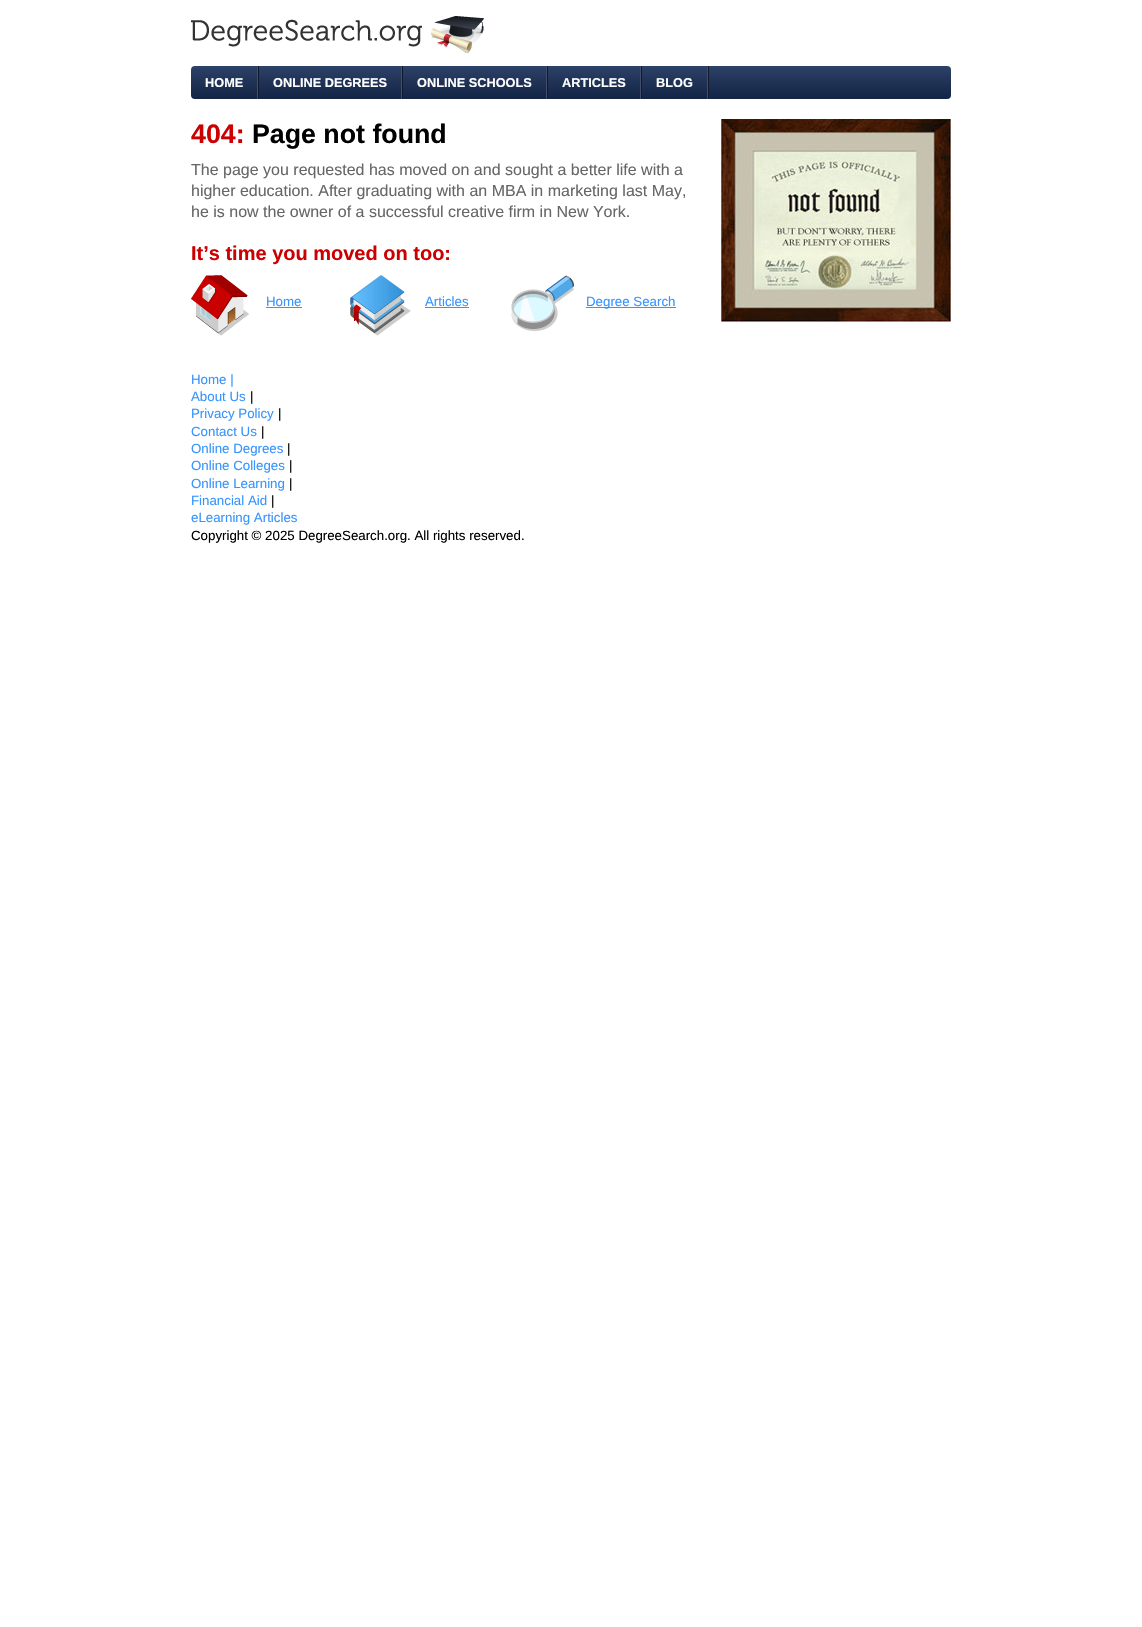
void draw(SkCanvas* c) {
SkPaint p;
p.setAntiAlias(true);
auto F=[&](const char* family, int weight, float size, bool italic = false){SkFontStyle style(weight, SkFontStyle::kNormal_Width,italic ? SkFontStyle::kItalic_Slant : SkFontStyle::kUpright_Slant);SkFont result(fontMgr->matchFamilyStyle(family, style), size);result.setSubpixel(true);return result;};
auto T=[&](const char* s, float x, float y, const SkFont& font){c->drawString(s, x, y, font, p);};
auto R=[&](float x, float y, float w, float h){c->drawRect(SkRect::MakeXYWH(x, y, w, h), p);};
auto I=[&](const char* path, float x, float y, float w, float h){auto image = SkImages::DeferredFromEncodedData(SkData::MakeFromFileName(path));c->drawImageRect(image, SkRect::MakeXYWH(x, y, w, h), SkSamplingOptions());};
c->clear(0xffffffff);
I("1.png",191,16,293,37);
I("2.png",191,66,760,33);
p.setColor(0xff131a2d);
R(708,66,1,33);
p.setColor(0xff414d6b);
R(257,66,1,33);
auto f1 = F("Liberation Sans",700,12.75);
p.setColor(0xffffffff);
T("HOME",205,87,f1);
p.setColor(0xff414d6b);
R(401,66,1,33);
p.setColor(0xff131a2d);
R(258,66,1,33);
p.setColor(0xffffffff);
T("ONLINE DEGREES",273,87,f1);
p.setColor(0xff414d6b);
R(546,66,1,33);
p.setColor(0xff131a2d);
R(402,66,1,33);
p.setColor(0xffffffff);
T("ONLINE SCHOOLS",417,87,f1);
p.setColor(0xff414d6b);
R(640,66,1,33);
p.setColor(0xff131a2d);
R(547,66,1,33);
p.setColor(0xffffffff);
T("ARTICLES",562,87,f1);
p.setColor(0xff414d6b);
R(707,66,1,33);
p.setColor(0xff131a2d);
R(641,66,1,33);
p.setColor(0xffffffff);
T("BLOG",656,87,f1);
auto f2 = F("Liberation Sans",700,26.75);
p.setColor(0xffcc0000);
T("404:",191,143,f2);
p.setColor(0xff000000);
T("Page not found",252,143,f2);
auto f3 = F("Liberation Sans",400,16);
p.setColor(0xff666666);
T("The page you requested has moved on and sought a better life with a",191,175,f3);
T("higher education. After graduating with an MBA in marketing last May,",191,196,f3);
T("he is now the owner of a successful creative firm in New York.",191,217,f3);
auto f4 = F("Liberation Sans",700,20);
p.setColor(0xffcc0000);
T("It’s time you moved on too:",191,260,f4);
I("3.png",191,275,58,61);
auto f5 = F("Liberation Sans",400,13.3);
p.setColor(0xff3794fd);
T("Home",266,306,f5);
R(266,307,36,1);
I("4.png",350,275,61,61);
T("Articles",425,306,f5);
R(425,307,44,1);
I("5.png",511,275,63,56);
R(586,307,90,1);
T("Degree Search",586,306,f5);
I("6.png",721,119,230,203);
T("Home |",191,384,f5);
T("About Us",191,401,f5);
p.setColor(0xff000000);
T("|",250,401,f5);
p.setColor(0xff3794fd);
T("Privacy Policy",191,418,f5);
p.setColor(0xff000000);
T("|",278,418,f5);
p.setColor(0xff3794fd);
T("Contact Us",191,436,f5);
p.setColor(0xff000000);
T("|",261,436,f5);
p.setColor(0xff3794fd);
T("Online Degrees",191,453,f5);
p.setColor(0xff000000);
T("|",287,453,f5);
p.setColor(0xff3794fd);
T("Online Colleges",191,470,f5);
p.setColor(0xff000000);
T("|",289,470,f5);
p.setColor(0xff3794fd);
T("Online Learning",191,488,f5);
p.setColor(0xff000000);
T("|",289,488,f5);
p.setColor(0xff3794fd);
T("Financial Aid",191,505,f5);
p.setColor(0xff000000);
T("|",271,505,f5);
p.setColor(0xff3794fd);
T("eLearning Articles",191,522,f5);
p.setColor(0xff000000);
T("Copyright © 2025 DegreeSearch.org. All rights reserved.",191,540,f5);
}
